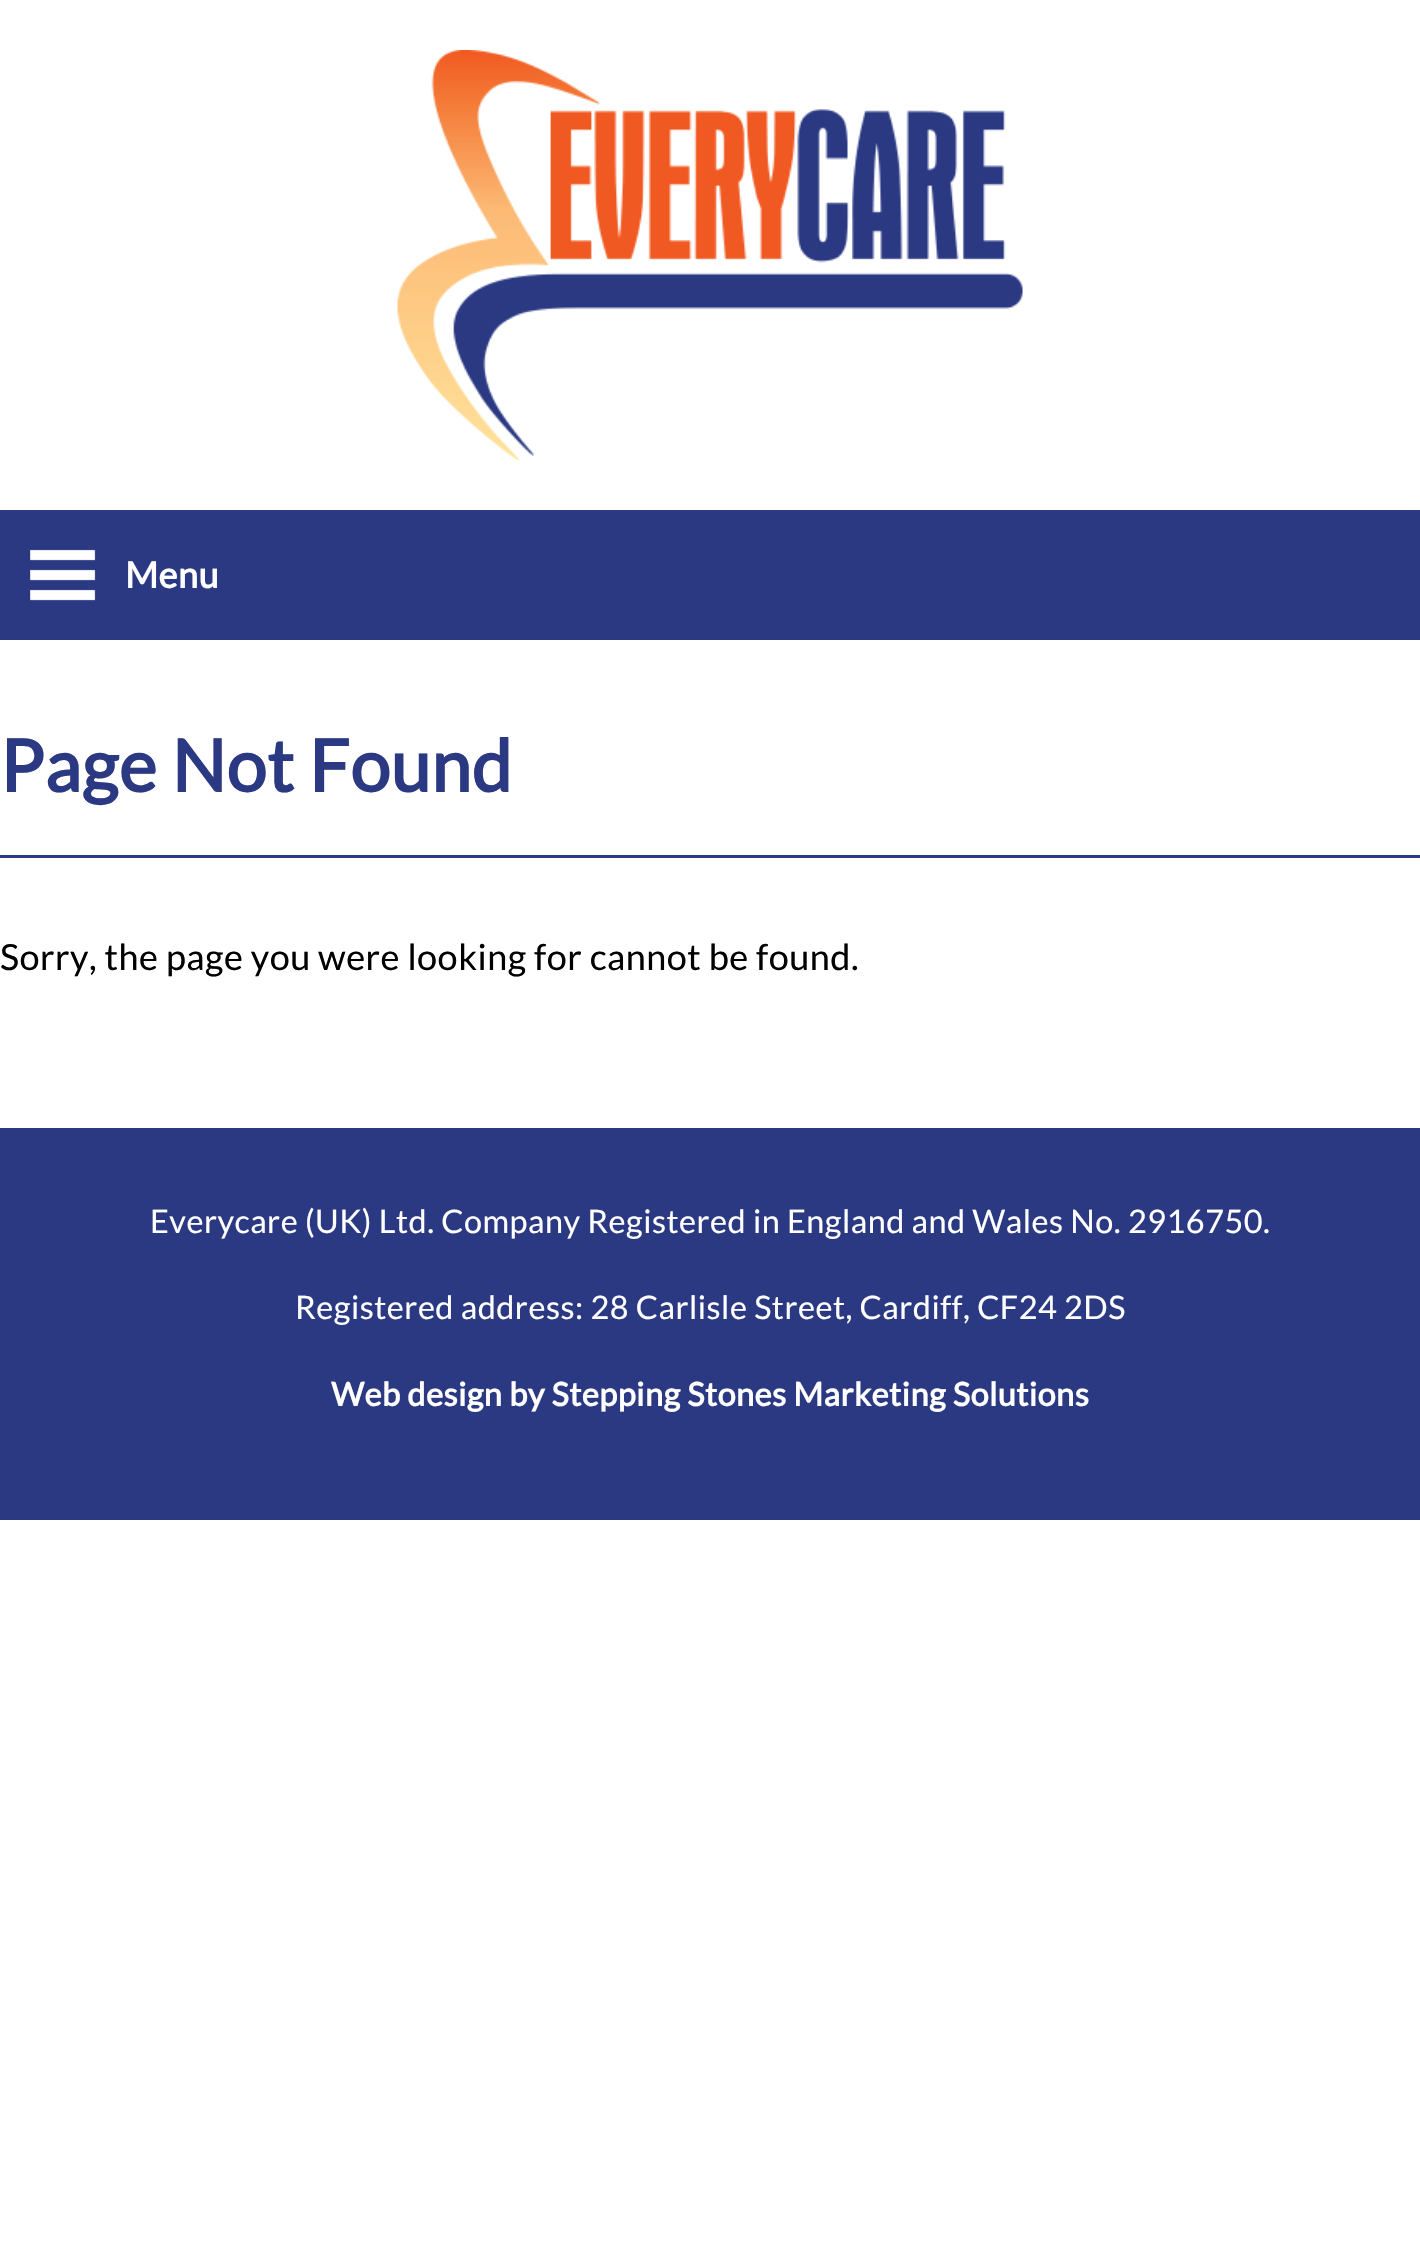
void draw(SkCanvas* c) {
SkPaint p;
p.setAntiAlias(true);
auto F=[&](const char* family, int weight, float size, bool italic = false){SkFontStyle style(weight, SkFontStyle::kNormal_Width,italic ? SkFontStyle::kItalic_Slant : SkFontStyle::kUpright_Slant);SkFont result(fontMgr->matchFamilyStyle(family, style), size);result.setSubpixel(true);return result;};
auto L=[&](const char* s, float x, float y, const SkFont& font, const SkPaint& ink, float letter, float word){std::vector<SkGlyphID> glyphs(font.countText(s, strlen(s), SkTextEncoding::kUTF8));std::vector<float> xs(glyphs.size());font.textToGlyphs(s, strlen(s), SkTextEncoding::kUTF8, glyphs);font.getXPos(glyphs, xs, x);float extra = 0;for (size_t i = 0; i < glyphs.size(); i++) {xs[i] += extra;extra += letter + word * (glyphs[i] == font.unicharToGlyph(' '));}c->drawTextBlob(SkTextBlob::MakeFromPosHGlyphs(glyphs, xs, y, font), 0, 0, ink);};
auto R=[&](float x, float y, float w, float h){c->drawRect(SkRect::MakeXYWH(x, y, w, h), p);};
auto I=[&](const char* path, float x, float y, float w, float h){auto image = SkImages::DeferredFromEncodedData(SkData::MakeFromFileName(path));c->drawImageRect(image, SkRect::MakeXYWH(x, y, w, h), SkSamplingOptions());};
c->clear(0xffffffff);
I("1.png",397,50,626,410);
p.setColor(0xff2b3983);
R(0,510,1420,130);
I("2.png",30,549,66,52);
auto f1 = F("Lato",700,36);
p.setColor(0xffffffff);
L("Menu",125,588,f1,p,.5,0);
p.setColor(0xff2b3983);
R(0,855,1420,3);
auto f2 = F("Lato",700,72);
L("Page Not Found",0,792,f2,p,.5,0);
auto f3 = F("Lato",400,36);
p.setColor(0xff000000);
L("Sorry, the page you were looking for cannot be found.",0,970,f3,p,.5,0);
p.setColor(0xff2b3983);
R(0,1128,1420,392);
auto f4 = F("Lato",400,32.4);
p.setColor(0xffffffff);
L("Everycare (UK) Ltd. Company Registered in England and Wales No. 2916750.",150,1233,f4,p,.5,0);
L("Registered address: 28 Carlisle Street, Cardiff, CF24 2DS",295,1319,f4,p,.5,0);
auto f5 = F("Lato",700,32.4);
L("Web design by Stepping Stones Marketing Solutions",331,1406,f5,p,.5,0);
}
